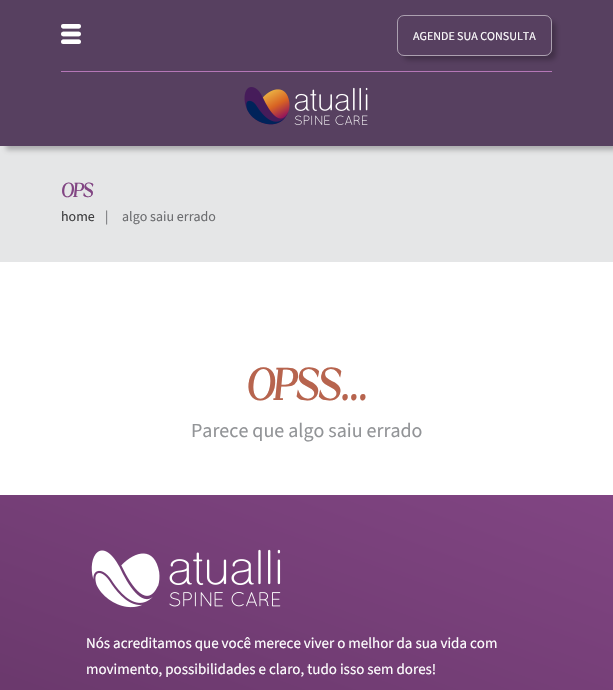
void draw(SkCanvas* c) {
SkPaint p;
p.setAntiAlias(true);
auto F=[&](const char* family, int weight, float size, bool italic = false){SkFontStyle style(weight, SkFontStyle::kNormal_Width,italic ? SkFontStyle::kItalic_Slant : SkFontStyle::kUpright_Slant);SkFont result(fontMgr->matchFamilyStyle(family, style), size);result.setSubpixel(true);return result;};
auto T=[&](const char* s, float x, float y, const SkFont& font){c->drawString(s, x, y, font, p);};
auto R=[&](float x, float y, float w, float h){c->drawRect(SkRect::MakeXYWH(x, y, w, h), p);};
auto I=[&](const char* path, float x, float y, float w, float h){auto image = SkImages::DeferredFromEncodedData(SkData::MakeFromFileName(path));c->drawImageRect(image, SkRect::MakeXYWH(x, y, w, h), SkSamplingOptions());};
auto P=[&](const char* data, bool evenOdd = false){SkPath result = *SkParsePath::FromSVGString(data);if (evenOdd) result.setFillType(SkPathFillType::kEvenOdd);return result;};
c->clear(0xffffffff);
p.setColor(0xffe5e6e7);
R(0,146,613,116);
p.setColor(0x593f3f41);
p.setMaskFilter(SkMaskFilter::MakeBlur(kNormal_SkBlurStyle, 2.5));
c->drawRect(SkRect::MakeXYWH(6,6,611,144),p);
p.setMaskFilter(nullptr);
p.setColor(0xff574060);
R(0,0,613,146);
auto f1 = F("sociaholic",400,20);
p.setColor(0xffffffff);
T("\"",61,44,f1);
c->save();
c->clipPath(P("M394 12h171v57h-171zm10 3h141c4 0 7 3 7 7v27c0 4-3 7-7 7h-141c-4 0-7-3-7-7v-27c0-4 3-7 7-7z",true),true);
p.setColor(0x40000000);
p.setMaskFilter(SkMaskFilter::MakeBlur(kNormal_SkBlurStyle, 2.5));
c->drawRoundRect(SkRect::MakeXYWH(403,21,153,39),6,6,p);
p.setMaskFilter(nullptr);
c->restore();
p.setStroke(true);
p.setStrokeWidth(1);
p.setColor(0x80ffffff);
c->drawRoundRect(SkRect::MakeXYWH(397.5,15.5,154,40),6.5,6.5,p);
auto f2 = F("Source Sans 3",400,12);
p.setStroke(false);
p.setColor(0xffffffff);
T("AGENDE SUA CONSULTA",413,40,f2);
p.setColor(0xffb577b7);
R(61,71,491,1);
I("1.png",244,87,124,38);
auto f3 = F("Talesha",700,20);
p.setColor(0xff814583);
T("OPS",61,197,f3);
auto f4 = F("Source Sans 3",400,14);
p.setColor(0xff3f3f41);
T("home",61,221,f4);
p.setColor(0xff6c6d70);
T("|",105,221,f4);
T("algo saiu errado",122,221,f4);
auto f5 = F("Talesha",700,45);
p.setColor(0xffb7644e);
T("OPSS...",246,400,f5);
auto f6 = F("Source Sans 3",400,20);
p.setColor(0xff929497);
T("Parece que algo saiu errado",191,437,f6);
{
const SkColor colors[] = {0xff814583,0xff603362};
const float stops[] = {0,.5};
const SkPoint ends[] = {{504,455}, {109,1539}};
p.setShader(SkGradientShader::MakeLinear(ends, colors, stops, 2, SkTileMode::kClamp));
p.setAlpha(255);
}
R(0,495,613,195);
I("2.png",91,549,190,59);
auto f7 = F("Source Sans 3",400,15);
p.setShader(nullptr);
p.setColor(0xffffffff);
T("Nós acreditamos que você merece viver o melhor da sua vida com",86,648,f7);
T("movimento, possibilidades e claro, tudo isso sem dores!",86,674,f7);
}
